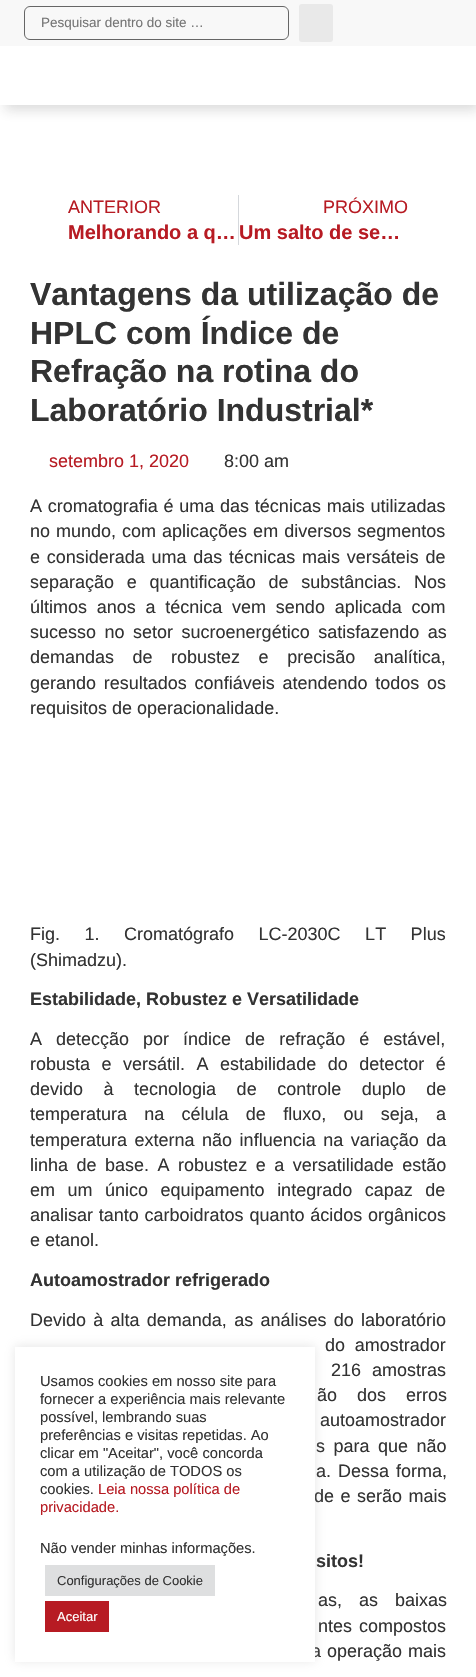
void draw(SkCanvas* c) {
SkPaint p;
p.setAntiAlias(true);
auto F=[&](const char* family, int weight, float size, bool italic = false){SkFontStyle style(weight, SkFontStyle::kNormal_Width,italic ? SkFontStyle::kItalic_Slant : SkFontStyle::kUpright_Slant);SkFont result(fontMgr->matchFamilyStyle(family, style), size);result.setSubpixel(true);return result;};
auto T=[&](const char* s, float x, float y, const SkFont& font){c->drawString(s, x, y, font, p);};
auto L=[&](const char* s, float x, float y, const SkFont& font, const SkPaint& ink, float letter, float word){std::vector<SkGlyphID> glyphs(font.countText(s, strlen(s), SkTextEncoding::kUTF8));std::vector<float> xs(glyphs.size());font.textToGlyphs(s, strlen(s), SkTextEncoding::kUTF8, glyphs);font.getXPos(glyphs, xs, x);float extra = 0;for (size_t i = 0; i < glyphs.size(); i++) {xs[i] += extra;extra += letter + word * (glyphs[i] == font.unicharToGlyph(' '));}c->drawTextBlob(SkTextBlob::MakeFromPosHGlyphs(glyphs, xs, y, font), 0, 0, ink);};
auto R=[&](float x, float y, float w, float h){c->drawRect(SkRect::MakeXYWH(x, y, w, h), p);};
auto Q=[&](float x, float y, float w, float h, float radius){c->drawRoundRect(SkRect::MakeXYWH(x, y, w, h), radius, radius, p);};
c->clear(0xffffffff);
p.setColor(0x2b242424);
p.setMaskFilter(SkMaskFilter::MakeBlur(kNormal_SkBlurStyle, 6));
c->drawRect(SkRect::MakeXYWH(5,7,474,103),p);
p.setMaskFilter(nullptr);
p.setColor(0xfff8f8f8);
R(0,0,476,46);
p.setStroke(true);
p.setStrokeWidth(1);
p.setColor(0xff666666);
c->drawRoundRect(SkRect::MakeXYWH(24.5,6.5,264,33),5.5,5.5,p);
auto f1 = F("Liberation Sans",400,13.5);
p.setStroke(false);
p.setColor(0xff757575);
T("Pesquisar dentro do site …",41,27,f1);
p.setColor(0xffe9e9e9);
Q(299,4,34,38,3);
p.setColor(0xffffffff);
R(0,46,476,59);
auto f2 = F("Liberation Sans",400,18);
p.setColor(0xffb71b23);
T("ANTERIOR",68,213,f2);
auto f3 = F("Liberation Sans",700,20);
T("Melhorando a q…",68,239,f3);
p.setColor(0xffd5d8dc);
R(238,195,1,50);
p.setColor(0xffb71b23);
T("PRÓXIMO",323,213,f2);
T("Um salto de se…",239,239,f3);
auto f4 = F("Liberation Sans",700,32);
p.setColor(0xff333333);
T("Vantagens da utilização de",30,305,f4);
T("HPLC com Índice de",30,344,f4);
T("Refração na rotina do",30,382,f4);
T("Laboratório Industrial*",30,421,f4);
p.setColor(0xffb71b23);
T("setembro 1, 2020",49,467,f2);
p.setColor(0xff333333);
T("8:00 am",224,467,f2);
L("A cromatografia é uma das técnicas mais utilizadas",30,512,f2,p,0,.75);
L("no mundo, com aplicações em diversos segmentos",30,537,f2,p,0,1);
L("e considerada uma das técnicas mais versáteis de",30,563,f2,p,0,1.75);
L("separação e quantificação de substâncias. Nos",30,588,f2,p,0,7.75);
L("últimos anos a técnica vem sendo aplicada com",30,613,f2,p,0,4.75);
L("sucesso no setor sucroenergético satisfazendo as",30,638,f2,p,0,3.5);
L("demandas de robustez e precisão analítica,",30,663,f2,p,0,13.5);
L("gerando resultados confiáveis atendendo todos os",30,689,f2,p,0,2.75);
T("requisitos de operacionalidade.",30,714,f2);
L("Fig. 1. Cromatógrafo LC-2030C LT Plus",30,940,f2,p,0,19.5);
T("(Shimadzu).",30,966,f2);
auto f5 = F("Liberation Sans",700,18);
T("Estabilidade, Robustez e Versatilidade",30,1005,f5);
L("A detecção por índice de refração é estável,",30,1045,f2,p,0,9);
L("robusta e versátil. A estabilidade do detector é",30,1070,f2,p,0,6.5);
L("devido à tecnologia de controle duplo de",30,1095,f2,p,0,15.5);
L("temperatura na célula de fluxo, ou seja, a",30,1120,f2,p,0,12.25);
L("temperatura externa não influencia na variação da",30,1146,f2,p,0,2.5);
L("linha de base. A robustez e a versatilidade estão",30,1171,f2,p,0,3.5);
L("em um único equipamento integrado capaz de",30,1196,f2,p,0,7.5);
L("analisar tanto carboidratos quanto ácidos orgânicos",30,1221,f2,p,0,.75);
T("e etanol.",30,1246,f2);
T("Autoamostrador refrigerado",30,1286,f5);
L("Devido à alta demanda, as análises do laboratório",30,1326,f2,p,0,2.25);
L("do amostrador",325,1351,f2,p,0,4.75);
L("216 amostras",331,1376,f2,p,0,6);
L("ão dos erros",317,1401,f2,p,0,15);
L("autoamostrador",320,1426,f2,p,0,6);
L("s para que não",316,1452,f2,p,0,3.5);
L("a. Dessa forma,",316,1477,f2,p,0,2);
L("de e serão mais",314,1502,f2,p,0,1.5);
T("sitos!",316,1567,f5);
L("as, as baixas",318,1606,f2,p,0,12);
L("ntes compostos",318,1632,f2,p,0,2);
L("a operação mais",311,1657,f2,p,0,1);
p.setColor(0x4dacabab);
p.setMaskFilter(SkMaskFilter::MakeBlur(kNormal_SkBlurStyle, 5));
c->drawRect(SkRect::MakeXYWH(15,1346,300,315),p);
p.setMaskFilter(nullptr);
p.setColor(0xffffffff);
R(15,1347,300,315);
auto f6 = F("Liberation Sans",400,14.7);
p.setColor(0xff333333);
T("Usamos cookies em nosso site para",40,1386,f6);
T("fornecer a experiência mais relevante",40,1404,f6);
T("possível, lembrando suas",40,1422,f6);
T("preferências e visitas repetidas. Ao",40,1440,f6);
T("clicar em \"Aceitar\", você concorda",40,1458,f6);
T("com a utilização de TODOS os",40,1476,f6);
T("cookies.",40,1494,f6);
p.setColor(0xffb71b23);
T("Leia nossa política de",98,1494,f6);
T("privacidade.",40,1512,f6);
p.setColor(0xff333333);
T("Não vender minhas informações.",40,1553,f6);
p.setColor(0xffdedfe0);
R(45,1565,170,31);
auto f7 = F("Liberation Sans",400,13);
p.setColor(0xff333333);
T("Configurações de Cookie",57,1585,f7);
p.setColor(0xffb71b23);
R(45,1601,64,31);
p.setColor(0xffffffff);
T("Aceitar",57,1621,f7);
}
